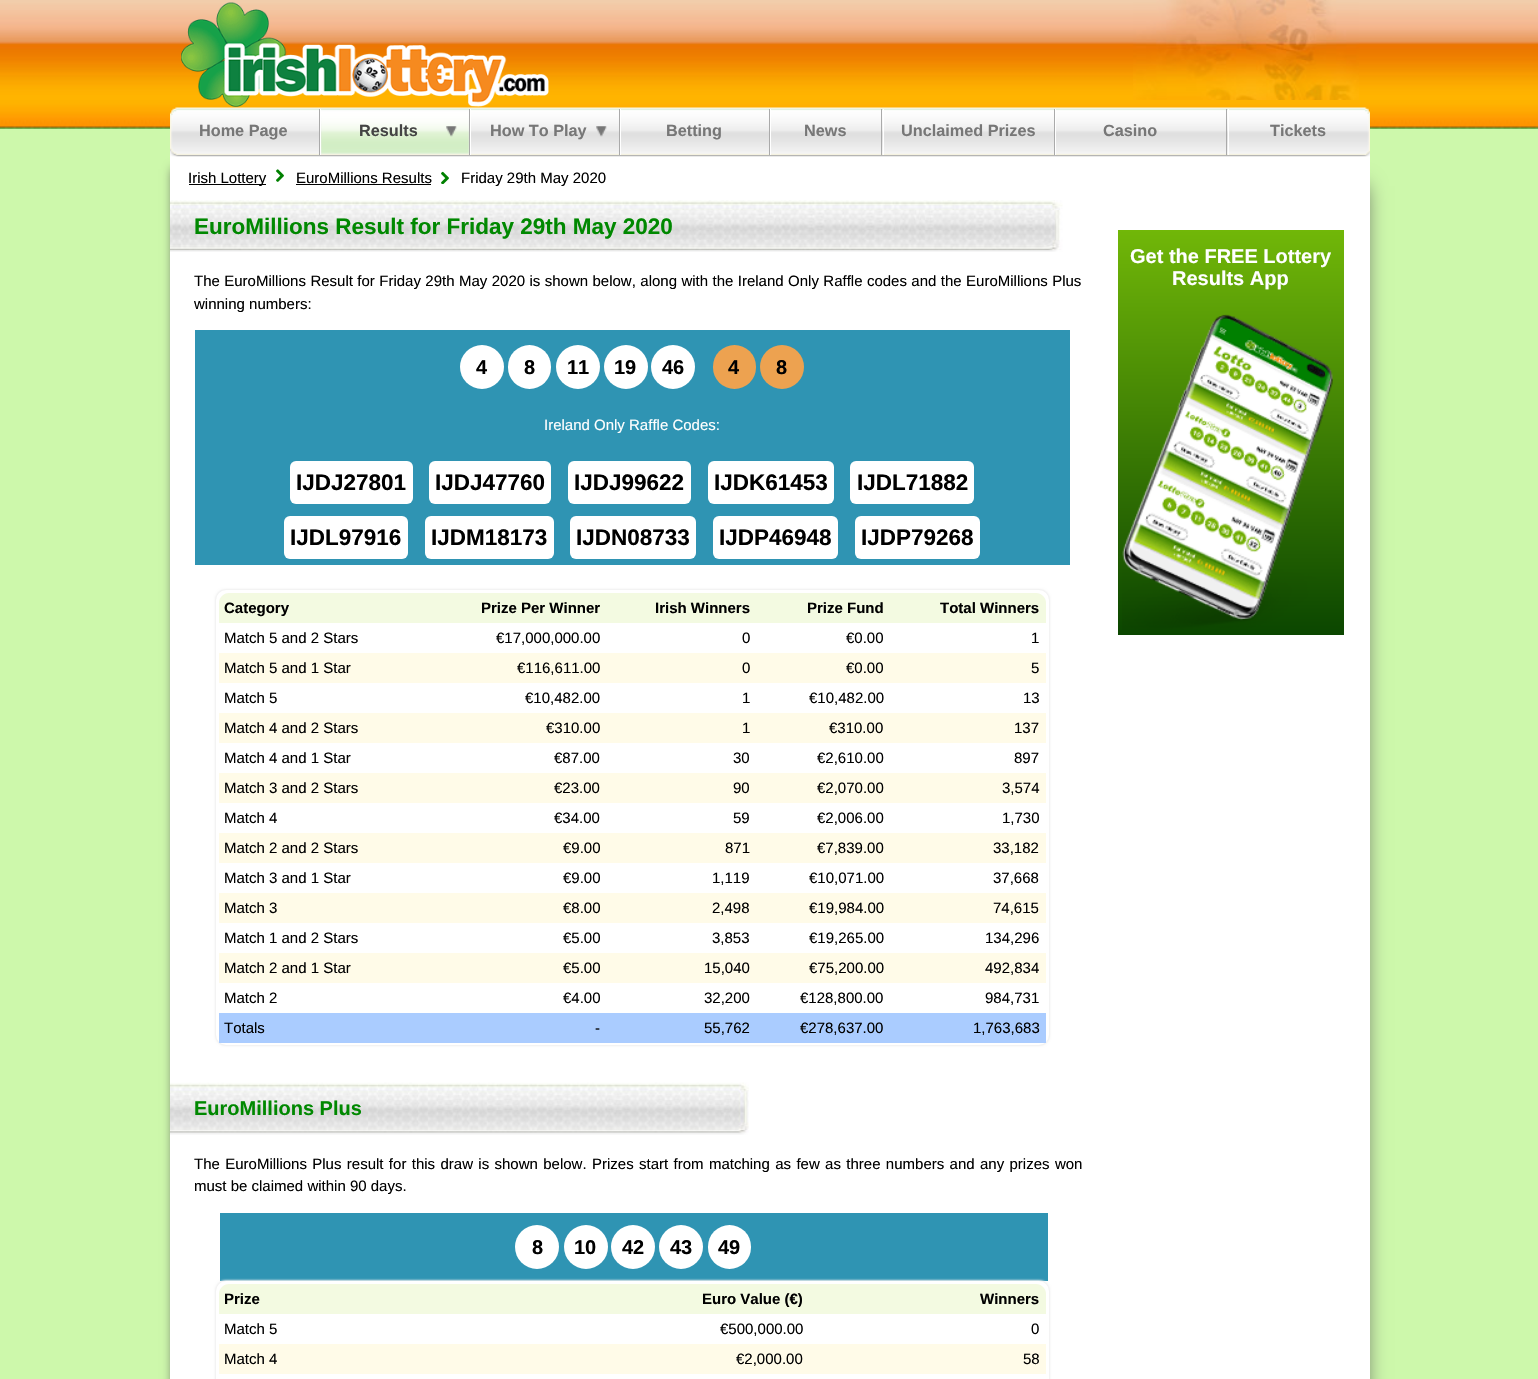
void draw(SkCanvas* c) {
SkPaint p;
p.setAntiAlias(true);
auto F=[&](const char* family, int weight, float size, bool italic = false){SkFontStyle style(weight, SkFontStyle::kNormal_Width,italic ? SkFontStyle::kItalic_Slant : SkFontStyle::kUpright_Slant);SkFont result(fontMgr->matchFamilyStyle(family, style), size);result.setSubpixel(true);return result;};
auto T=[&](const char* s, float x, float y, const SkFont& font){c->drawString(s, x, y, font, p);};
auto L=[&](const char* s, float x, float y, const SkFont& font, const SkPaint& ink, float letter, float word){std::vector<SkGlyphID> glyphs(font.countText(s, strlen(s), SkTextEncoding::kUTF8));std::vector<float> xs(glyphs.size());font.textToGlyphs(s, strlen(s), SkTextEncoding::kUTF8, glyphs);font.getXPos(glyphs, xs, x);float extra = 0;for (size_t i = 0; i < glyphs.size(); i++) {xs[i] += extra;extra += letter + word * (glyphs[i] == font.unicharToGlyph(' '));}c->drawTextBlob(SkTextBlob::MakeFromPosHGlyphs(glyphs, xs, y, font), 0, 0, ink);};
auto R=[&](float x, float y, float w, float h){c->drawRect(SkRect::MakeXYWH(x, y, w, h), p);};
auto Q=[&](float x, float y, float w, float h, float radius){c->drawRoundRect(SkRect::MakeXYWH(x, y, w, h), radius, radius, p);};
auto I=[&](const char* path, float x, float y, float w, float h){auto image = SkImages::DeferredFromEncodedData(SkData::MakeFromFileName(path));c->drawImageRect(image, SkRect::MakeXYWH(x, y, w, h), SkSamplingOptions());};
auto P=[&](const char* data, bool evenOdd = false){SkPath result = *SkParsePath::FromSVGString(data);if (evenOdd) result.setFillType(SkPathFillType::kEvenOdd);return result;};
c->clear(0xffcdf8ab);
I("1.png",0,0,1538,129);
I("2.png",1133,0,226,100);
I("3.png",181,2,368,105);
p.setColor(0xff555555);
p.setMaskFilter(SkMaskFilter::MakeBlur(kNormal_SkBlurStyle, 10));
c->drawRect(SkRect::MakeXYWH(225,186,1140,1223),p);
p.setMaskFilter(nullptr);
p.setMaskFilter(SkMaskFilter::MakeBlur(kNormal_SkBlurStyle, 5));
c->drawRect(SkRect::MakeXYWH(173,169,1175,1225),p);
p.setMaskFilter(nullptr);
p.setColor(0xffffffff);
R(170,156,1200,1223);
I("4.png",170,107,1200,50);
p.setColor(0xffaaaaaa);
R(319,109,1,46);
auto f1 = F("Liberation Sans",700,16.25);
p.setColor(0xff777777);
T("Home Page",199,136,f1);
p.setColor(0xffaaaaaa);
R(469,109,1,46);
p.setColor(0xffffffff);
R(320,109,1,46);
I("5.png",321,108,148,46);
p.setColor(0xff444444);
T("Results",359,136,f1);
I("6.png",446,126,11,11);
p.setColor(0xffaaaaaa);
R(619,109,1,46);
p.setColor(0xffffffff);
R(470,109,1,46);
p.setColor(0xff777777);
T("How To Play",490,136,f1);
I("7.png",596,126,11,11);
p.setColor(0xffaaaaaa);
R(769,109,1,46);
p.setColor(0xffffffff);
R(620,109,1,46);
p.setColor(0xff777777);
T("Betting",666,136,f1);
p.setColor(0xffaaaaaa);
R(881,109,1,46);
p.setColor(0xffffffff);
R(770,109,1,46);
p.setColor(0xff777777);
T("News",804,136,f1);
p.setColor(0xffaaaaaa);
R(1054,109,1,46);
p.setColor(0xffffffff);
R(883,109,1,46);
p.setColor(0xff777777);
T("Unclaimed Prizes",901,136,f1);
p.setColor(0xffaaaaaa);
R(1226,109,1,46);
p.setColor(0xffffffff);
R(1055,109,1,46);
p.setColor(0xff777777);
T("Casino",1103,136,f1);
p.setColor(0xffffffff);
R(1228,109,1,46);
p.setColor(0xff777777);
T("Tickets",1270,136,f1);
p.setColor(0xff000000);
R(189,184,77,1);
auto f2 = F("Liberation Sans",400,15);
T("Irish Lottery",188,183,f2);
I("8.png",276,169,8,13);
T("EuroMillions Results",296,183,f2);
R(296,184,135,1);
I("9.png",441,171,8,13);
T("Friday 29th May 2020",461,183,f2);
I("10.png",170,200,893,52);
auto f3 = F("Liberation Sans",700,22.5);
p.setColor(0xff008800);
T("EuroMillions Result for Friday 29th May 2020",194,234,f3);
p.setColor(0xff000000);
L("The EuroMillions Result for Friday 29th May 2020 is shown below, along with the Ireland Only Raffle codes and the EuroMillions Plus",194,286,f2,p,0,.25);
T("winning numbers:",194,309,f2);
p.setColor(0xff2f94b3);
R(195,330,875,235);
p.setColor(0xffffffff);
c->drawCircle(482,367,22,p);
auto f4 = F("Liberation Sans",700,20);
p.setColor(0xff000000);
T("4",476,374,f4);
p.setColor(0xffffffff);
Q(508,345,43,44,21.5);
p.setColor(0xff000000);
T("8",524,374,f4);
p.setColor(0xffffffff);
c->drawCircle(578,367,22,p);
p.setColor(0xff000000);
T("11",567,374,f4);
p.setColor(0xffffffff);
c->drawCircle(626,367,22,p);
p.setColor(0xff000000);
T("19",614,374,f4);
p.setColor(0xffffffff);
c->drawCircle(673,367,22,p);
p.setColor(0xff000000);
T("46",662,374,f4);
p.setColor(0xffeda250);
Q(713,345,43,44,21.5);
p.setColor(0xff000000);
T("4",728,374,f4);
p.setColor(0xffeda250);
c->drawCircle(782,367,22,p);
p.setColor(0xff000000);
T("8",776,374,f4);
p.setColor(0xffffffff);
T("Ireland Only Raffle Codes:",544,430,f2);
Q(290,461,123,43,6);
p.setColor(0xff000000);
T("IJDJ27801",296,490,f3);
p.setColor(0xffffffff);
Q(429,461,122,43,6);
p.setColor(0xff000000);
T("IJDJ47760",435,490,f3);
p.setColor(0xffffffff);
Q(568,461,123,43,6);
p.setColor(0xff000000);
T("IJDJ99622",574,490,f3);
p.setColor(0xffffffff);
Q(708,461,126,43,6);
p.setColor(0xff000000);
T("IJDK61453",714,490,f3);
p.setColor(0xffffffff);
Q(850,461,124,43,6);
p.setColor(0xff000000);
T("IJDL71882",857,490,f3);
p.setColor(0xffffffff);
Q(284,516,124,43,6);
p.setColor(0xff000000);
T("IJDL97916",290,545,f3);
p.setColor(0xffffffff);
Q(425,516,129,43,6);
p.setColor(0xff000000);
T("IJDM18173",431,545,f3);
p.setColor(0xffffffff);
Q(570,516,126,43,6);
p.setColor(0xff000000);
T("IJDN08733",576,545,f3);
p.setColor(0xffffffff);
Q(713,516,125,43,6);
p.setColor(0xff000000);
T("IJDP46948",719,545,f3);
p.setColor(0xffffffff);
Q(855,516,125,43,6);
p.setColor(0xff000000);
T("IJDP79268",861,545,f3);
p.setColor(0xffefefef);
p.setMaskFilter(SkMaskFilter::MakeBlur(kNormal_SkBlurStyle, 1));
c->drawRoundRect(SkRect::MakeXYWH(215,589,835,457),11,11,p);
p.setMaskFilter(nullptr);
p.setColor(0xffffffff);
Q(216,590,833,455,10);
p.setColor(0xfff3fae1);
c->drawPath(P("M229 593h194v30h-204v-20c0-5.5 4.5-10 10-10z"),p);
auto f5 = F("Liberation Sans",700,15);
p.setColor(0xff000000);
T("Category",224,613,f5);
p.setColor(0xfff3fae1);
R(423,593,467,30);
p.setColor(0xff000000);
T("Prize Per Winner",481,613,f5);
T("Irish Winners",655,613,f5);
T("Prize Fund",807,613,f5);
p.setColor(0xfff3fae1);
c->drawPath(P("M890 593h146c5.5 0 10 4.5 10 10v20h-156z"),p);
p.setColor(0xff000000);
T("Total Winners",940,613,f5);
T("Match 5 and 2 Stars",224,643,f2);
T("€17,000,000.00",496,643,f2);
T("0",742,643,f2);
T("€0.00",846,643,f2);
T("1",1031,643,f2);
p.setColor(0xfffffbe8);
R(219,653,827,30);
p.setColor(0xff000000);
T("Match 5 and 1 Star",224,673,f2);
T("€116,611.00",517,673,f2);
T("0",742,673,f2);
T("€0.00",846,673,f2);
T("5",1031,673,f2);
T("Match 5",224,703,f2);
T("€10,482.00",525,703,f2);
T("1",742,703,f2);
T("€10,482.00",809,703,f2);
T("13",1023,703,f2);
p.setColor(0xfffffbe8);
R(219,713,827,30);
p.setColor(0xff000000);
T("Match 4 and 2 Stars",224,733,f2);
T("€310.00",546,733,f2);
T("1",742,733,f2);
T("€310.00",829,733,f2);
T("137",1014,733,f2);
T("Match 4 and 1 Star",224,763,f2);
T("€87.00",554,763,f2);
T("30",733,763,f2);
T("€2,610.00",817,763,f2);
T("897",1014,763,f2);
p.setColor(0xfffffbe8);
R(219,773,827,30);
p.setColor(0xff000000);
T("Match 3 and 2 Stars",224,793,f2);
T("€23.00",554,793,f2);
T("90",733,793,f2);
T("€2,070.00",817,793,f2);
T("3,574",1002,793,f2);
T("Match 4",224,823,f2);
T("€34.00",554,823,f2);
T("59",733,823,f2);
T("€2,006.00",817,823,f2);
T("1,730",1002,823,f2);
p.setColor(0xfffffbe8);
R(219,833,827,30);
p.setColor(0xff000000);
T("Match 2 and 2 Stars",224,853,f2);
T("€9.00",563,853,f2);
T("871",725,853,f2);
T("€7,839.00",817,853,f2);
T("33,182",993,853,f2);
T("Match 3 and 1 Star",224,883,f2);
T("€9.00",563,883,f2);
T("1,119",712,883,f2);
T("€10,071.00",809,883,f2);
T("37,668",993,883,f2);
p.setColor(0xfffffbe8);
R(219,893,827,30);
p.setColor(0xff000000);
T("Match 3",224,913,f2);
T("€8.00",563,913,f2);
T("2,498",712,913,f2);
T("€19,984.00",809,913,f2);
T("74,615",993,913,f2);
T("Match 1 and 2 Stars",224,943,f2);
T("€5.00",563,943,f2);
T("3,853",712,943,f2);
T("€19,265.00",809,943,f2);
T("134,296",985,943,f2);
p.setColor(0xfffffbe8);
R(219,953,827,30);
p.setColor(0xff000000);
T("Match 2 and 1 Star",224,973,f2);
T("€5.00",563,973,f2);
T("15,040",704,973,f2);
T("€75,200.00",809,973,f2);
T("492,834",985,973,f2);
T("Match 2",224,1003,f2);
T("€4.00",563,1003,f2);
T("32,200",704,1003,f2);
T("€128,800.00",800,1003,f2);
T("984,731",985,1003,f2);
p.setColor(0xffaaccff);
R(219,1013,827,30);
p.setColor(0xff000000);
T("Totals",224,1033,f2);
T("-",595,1033,f2);
T("55,762",704,1033,f2);
T("€278,637.00",800,1033,f2);
T("1,763,683",973,1033,f2);
I("11.png",170,1082,579,53);
p.setColor(0xff008800);
T("EuroMillions Plus",194,1115,f4);
p.setColor(0xff000000);
L("The EuroMillions Plus result for this draw is shown below. Prizes start from matching as few as three numbers and any prizes won",194,1169,f2,p,0,1.2);
T("must be claimed within 90 days.",194,1191,f2);
p.setColor(0xff2f94b3);
R(220,1213,828,68);
p.setColor(0xffffffff);
c->drawCircle(537,1247,22,p);
p.setColor(0xff000000);
T("8",532,1254,f4);
p.setColor(0xffffffff);
c->drawCircle(586,1247,22,p);
p.setColor(0xff000000);
T("10",574,1254,f4);
p.setColor(0xffffffff);
c->drawCircle(633,1247,22,p);
p.setColor(0xff000000);
T("42",622,1254,f4);
p.setColor(0xffffffff);
c->drawCircle(681,1247,22,p);
p.setColor(0xff000000);
T("43",670,1254,f4);
p.setColor(0xffffffff);
Q(708,1225,43,44,21.5);
p.setColor(0xff000000);
T("49",718,1254,f4);
p.setColor(0xffefefef);
p.setMaskFilter(SkMaskFilter::MakeBlur(kNormal_SkBlurStyle, 1));
c->drawRoundRect(SkRect::MakeXYWH(215,1280,835,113),11,11,p);
p.setMaskFilter(nullptr);
p.setColor(0xffffffff);
Q(216,1281,833,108,10);
p.setColor(0xfff3fae1);
c->drawPath(P("M229 1284h206v30h-216v-20c0-5.5 4.5-10 10-10z"),p);
p.setColor(0xff000000);
T("Prize",224,1304,f5);
p.setColor(0xfff3fae1);
R(435,1284,374,30);
p.setColor(0xff000000);
T("Euro Value (€)",702,1304,f5);
p.setColor(0xfff3fae1);
c->drawPath(P("M809 1284h227c5.5 0 10 4.5 10 10v20h-237z"),p);
p.setColor(0xff000000);
T("Winners",980,1304,f5);
T("Match 5",224,1334,f2);
T("€500,000.00",720,1334,f2);
T("0",1031,1334,f2);
p.setColor(0xfffffbe8);
R(219,1344,827,30);
p.setColor(0xff000000);
T("Match 4",224,1364,f2);
T("€2,000.00",736,1364,f2);
T("58",1023,1364,f2);
{
const SkColor colors[] = {0xff0b4600,0xff71b708};
const float stops[] = {0,1};
const SkPoint ends[] = {{1231,635}, {1231,230}};
p.setShader(SkGradientShader::MakeLinear(ends, colors, stops, 2, SkTileMode::kClamp));
p.setAlpha(255);
}
R(1118,230,226,405);
p.setShader(nullptr);
p.setColor(0xffffffff);
T("Get the FREE Lottery",1130,263,f4);
T("Results App",1172,285,f4);
I("12.png",1122,314,211,316);
}
